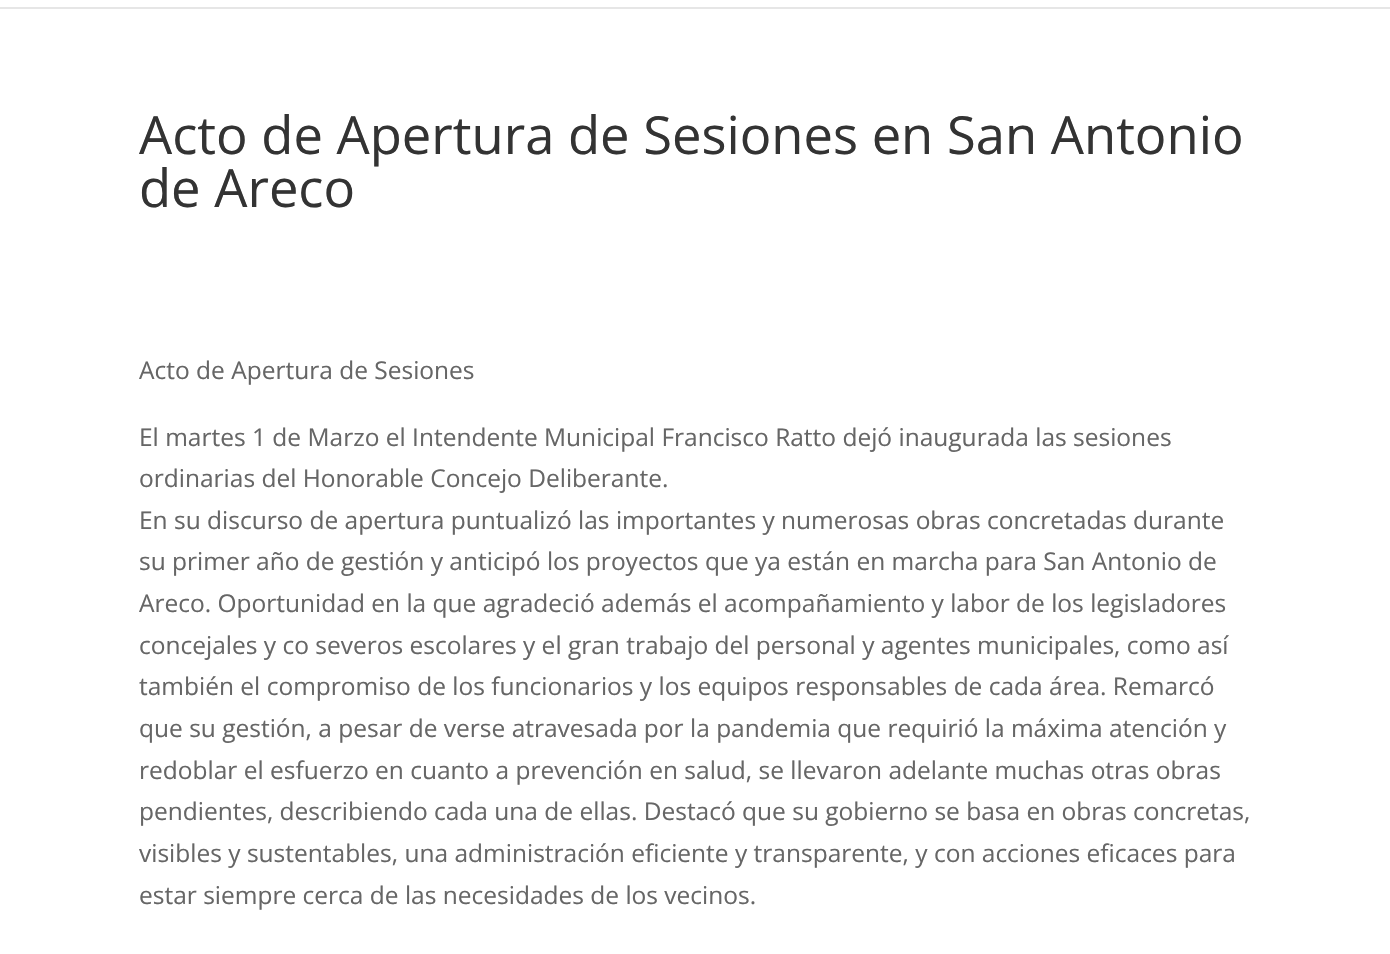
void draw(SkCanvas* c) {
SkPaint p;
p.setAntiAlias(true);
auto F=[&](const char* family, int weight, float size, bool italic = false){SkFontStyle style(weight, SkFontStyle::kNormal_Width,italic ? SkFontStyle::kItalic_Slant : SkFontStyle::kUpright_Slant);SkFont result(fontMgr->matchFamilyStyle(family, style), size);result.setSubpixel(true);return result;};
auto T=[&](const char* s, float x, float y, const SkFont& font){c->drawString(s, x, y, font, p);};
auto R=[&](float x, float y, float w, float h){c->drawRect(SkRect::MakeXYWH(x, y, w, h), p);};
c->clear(0xffffffff);
p.setColor(0xffe6e6e6);
R(0,7,1390,2);
auto f1 = F("Open Sans",400,52.5);
p.setColor(0xff333333);
T("Acto de Apertura de Sesiones en San Antonio",139,154,f1);
T("de Areco",139,207,f1);
auto f2 = F("Open Sans",400,24.5);
p.setColor(0xff666666);
T("Acto de Apertura de Sesiones",139,379,f2);
T("El martes 1 de Marzo el Intendente Municipal Francisco Ratto dejó inaugurada las sesiones",139,446,f2);
T("ordinarias del Honorable Concejo Deliberante.",139,487,f2);
T("En su discurso de apertura puntualizó las importantes y numerosas obras concretadas durante",139,529,f2);
T("su primer año de gestión y anticipó los proyectos que ya están en marcha para San Antonio de",139,570,f2);
T("Areco. Oportunidad en la que agradeció además el acompañamiento y labor de los legisladores",139,612,f2);
T("concejales y co severos escolares y el gran trabajo del personal y agentes municipales, como así",139,654,f2);
T("también el compromiso de los funcionarios y los equipos responsables de cada área. Remarcó",139,695,f2);
T("que su gestión, a pesar de verse atravesada por la pandemia que requirió la máxima atención y",139,737,f2);
T("redoblar el esfuerzo en cuanto a prevención en salud, se llevaron adelante muchas otras obras",139,779,f2);
T("pendientes, describiendo cada una de ellas. Destacó que su gobierno se basa en obras concretas,",139,820,f2);
T("visibles y sustentables, una administración eficiente y transparente, y con acciones eficaces para",139,862,f2);
T("estar siempre cerca de las necesidades de los vecinos.",139,904,f2);
}
